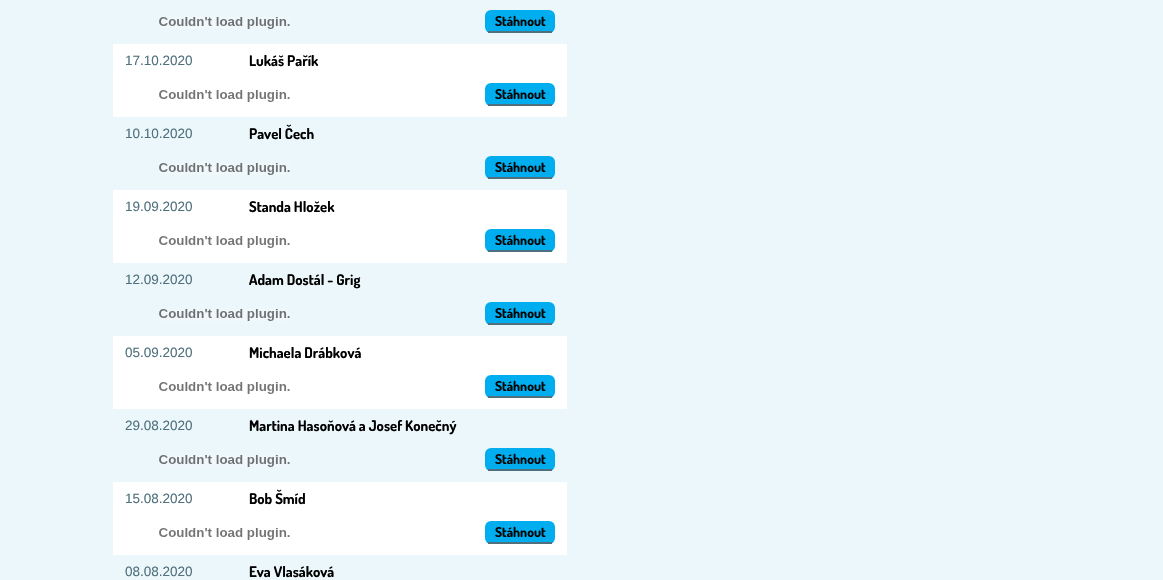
void draw(SkCanvas* c) {
SkPaint p;
p.setAntiAlias(true);
auto F=[&](const char* family, int weight, float size, bool italic = false){SkFontStyle style(weight, SkFontStyle::kNormal_Width,italic ? SkFontStyle::kItalic_Slant : SkFontStyle::kUpright_Slant);SkFont result(fontMgr->matchFamilyStyle(family, style), size);result.setSubpixel(true);return result;};
auto T=[&](const char* s, float x, float y, const SkFont& font){c->drawString(s, x, y, font, p);};
auto R=[&](float x, float y, float w, float h){c->drawRect(SkRect::MakeXYWH(x, y, w, h), p);};
auto Q=[&](float x, float y, float w, float h, float radius){c->drawRoundRect(SkRect::MakeXYWH(x, y, w, h), radius, radius, p);};
auto I=[&](const char* path, float x, float y, float w, float h){auto image = SkImages::DeferredFromEncodedData(SkData::MakeFromFileName(path));c->drawImageRect(image, SkRect::MakeXYWH(x, y, w, h), SkSamplingOptions());};
c->clear(0xffecf7fb);
I("1.png",159,17,131,12);
p.setColor(0xff00aeef);
Q(485,10,70,23,6);
auto f1 = F("Dosis",700,13.5);
p.setColor(0xff000000);
T("Stáhnout",495,26,f1);
p.setColor(0xff4f707c);
R(488,31,64,2);
p.setColor(0xffffffff);
R(113,44,454,73);
auto f2 = F("Liberation Sans",400,13.5);
p.setColor(0xff4f707c);
T("17.10.2020",125,65,f2);
auto f3 = F("Dosis",700,14.7);
p.setColor(0xff000000);
T("Lukáš Pařík",249,66,f3);
I("2.png",159,90,131,12);
p.setColor(0xff00aeef);
Q(485,83,70,23,6);
p.setColor(0xff000000);
T("Stáhnout",495,99,f1);
p.setColor(0xff4f707c);
R(488,104,64,2);
T("10.10.2020",125,138,f2);
p.setColor(0xff000000);
T("Pavel Čech",249,139,f3);
I("1.png",159,163,131,12);
p.setColor(0xff00aeef);
Q(485,156,70,23,6);
p.setColor(0xff000000);
T("Stáhnout",495,172,f1);
p.setColor(0xff4f707c);
R(488,177,64,2);
p.setColor(0xffffffff);
R(113,190,454,73);
p.setColor(0xff4f707c);
T("19.09.2020",125,211,f2);
p.setColor(0xff000000);
T("Standa Hložek",249,212,f3);
I("2.png",159,236,131,12);
p.setColor(0xff00aeef);
Q(485,229,70,23,6);
p.setColor(0xff000000);
T("Stáhnout",495,245,f1);
p.setColor(0xff4f707c);
R(488,250,64,2);
T("12.09.2020",125,284,f2);
p.setColor(0xff000000);
T("Adam Dostál - Grig",249,285,f3);
I("1.png",159,309,131,12);
p.setColor(0xff00aeef);
Q(485,302,70,23,6);
p.setColor(0xff000000);
T("Stáhnout",495,318,f1);
p.setColor(0xff4f707c);
R(488,323,64,2);
p.setColor(0xffffffff);
R(113,336,454,73);
p.setColor(0xff4f707c);
T("05.09.2020",125,357,f2);
p.setColor(0xff000000);
T("Michaela Drábková",249,358,f3);
I("2.png",159,382,131,12);
p.setColor(0xff00aeef);
Q(485,375,70,23,6);
p.setColor(0xff000000);
T("Stáhnout",495,391,f1);
p.setColor(0xff4f707c);
R(488,396,64,2);
T("29.08.2020",125,430,f2);
p.setColor(0xff000000);
T("Martina Hasoňová a Josef Konečný",249,431,f3);
I("1.png",159,455,131,12);
p.setColor(0xff00aeef);
Q(485,448,70,23,6);
p.setColor(0xff000000);
T("Stáhnout",495,464,f1);
p.setColor(0xff4f707c);
R(488,469,64,2);
p.setColor(0xffffffff);
R(113,482,454,73);
p.setColor(0xff4f707c);
T("15.08.2020",125,503,f2);
p.setColor(0xff000000);
T("Bob Šmíd",249,504,f3);
I("2.png",159,528,131,12);
p.setColor(0xff00aeef);
Q(485,521,70,23,6);
p.setColor(0xff000000);
T("Stáhnout",495,537,f1);
p.setColor(0xff4f707c);
R(488,542,64,2);
T("08.08.2020",125,576,f2);
p.setColor(0xff000000);
T("Eva Vlasáková",249,577,f3);
}
